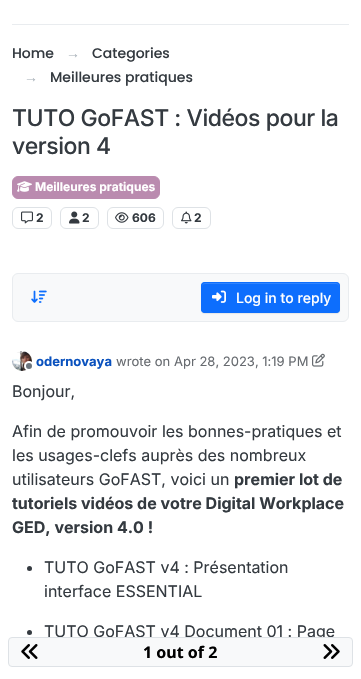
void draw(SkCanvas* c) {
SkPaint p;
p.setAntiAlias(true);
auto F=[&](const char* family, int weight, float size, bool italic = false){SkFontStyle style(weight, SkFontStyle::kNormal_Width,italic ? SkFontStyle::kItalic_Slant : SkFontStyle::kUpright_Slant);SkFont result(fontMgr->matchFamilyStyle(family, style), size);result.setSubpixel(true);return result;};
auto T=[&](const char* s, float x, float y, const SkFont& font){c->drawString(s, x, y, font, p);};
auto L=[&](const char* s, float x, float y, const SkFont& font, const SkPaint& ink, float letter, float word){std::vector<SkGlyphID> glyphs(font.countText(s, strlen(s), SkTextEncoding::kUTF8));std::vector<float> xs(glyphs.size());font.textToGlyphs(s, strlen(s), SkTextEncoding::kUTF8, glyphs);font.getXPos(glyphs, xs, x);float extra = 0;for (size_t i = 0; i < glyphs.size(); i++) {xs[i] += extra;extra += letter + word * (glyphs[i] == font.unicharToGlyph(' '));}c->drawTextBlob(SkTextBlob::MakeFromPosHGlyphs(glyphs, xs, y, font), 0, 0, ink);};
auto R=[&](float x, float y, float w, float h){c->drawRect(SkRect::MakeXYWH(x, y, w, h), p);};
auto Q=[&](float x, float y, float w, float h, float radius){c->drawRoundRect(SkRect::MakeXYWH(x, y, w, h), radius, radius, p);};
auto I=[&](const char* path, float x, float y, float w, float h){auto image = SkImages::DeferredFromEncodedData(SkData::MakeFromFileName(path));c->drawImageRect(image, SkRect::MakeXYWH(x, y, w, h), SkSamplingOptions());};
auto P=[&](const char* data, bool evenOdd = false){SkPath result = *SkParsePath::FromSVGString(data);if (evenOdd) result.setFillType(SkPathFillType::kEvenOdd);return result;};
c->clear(0xffffffff);
p.setColor(0xffe9ecef);
R(12,24,337,1);
auto f1 = F("Poppins",500,14);
p.setColor(0xff343a40);
T("Home",12,58,f1);
auto f2 = F("Liberation Sans",400,14);
p.setColor(0xffadb5bd);
T("→",66,58,f2);
p.setColor(0xff343a40);
T("Categories",92,58,f1);
p.setColor(0xffadb5bd);
T("→",24,82,f2);
p.setColor(0xff343a40);
T("Meilleures pratiques",50,82,f1);
auto f3 = F("Inter",500,23);
L("TUTO GoFAST : Vidéos pour la",12,126,f3,p,-.45,0);
L("version 4",12,154,f3,p,-.45,0);
p.setColor(0xffba8baf);
c->drawRoundRect(SkRect::MakeXYWH(12.5,176.5,147,22),5.5,5.5,p);
p.setStroke(true);
p.setStrokeWidth(1);
c->drawRoundRect(SkRect::MakeXYWH(12.5,176.5,147,22),5.5,5.5,p);
I("1.png",17,181,15,11);
auto f4 = F("Inter",700,12);
p.setStroke(false);
p.setColor(0xffffffff);
T("Meilleures pratiques",35,191,f4);
p.setStroke(true);
p.setColor(0xffdee2e6);
c->drawRoundRect(SkRect::MakeXYWH(12.5,207.5,39,21),5.5,5.5,p);
I("2.png",21,211,12,13);
p.setStroke(false);
p.setColor(0xff343a40);
T("2",36,222,f4);
p.setStroke(true);
p.setColor(0xffdee2e6);
c->drawRoundRect(SkRect::MakeXYWH(60.5,207.5,38,21),5.5,5.5,p);
I("3.png",69,211,11,13);
p.setStroke(false);
p.setColor(0xff343a40);
T("2",82,222,f4);
p.setStroke(true);
p.setColor(0xffdee2e6);
c->drawRoundRect(SkRect::MakeXYWH(107.5,207.5,56,21),5.5,5.5,p);
I("4.png",115,212,14,11);
p.setStroke(false);
p.setColor(0xff343a40);
T("606",132,222,f4);
p.setStroke(true);
p.setColor(0xffdee2e6);
c->drawRoundRect(SkRect::MakeXYWH(172.5,207.5,38,21),5.5,5.5,p);
I("5.png",181,211,11,13);
p.setStroke(false);
p.setColor(0xff343a40);
T("2",194,222,f4);
p.setColor(0xfff8f9fa);
c->drawRoundRect(SkRect::MakeXYWH(12.5,273.5,336,48),5.5,5.5,p);
p.setStroke(true);
p.setColor(0xffe9ecef);
c->drawRoundRect(SkRect::MakeXYWH(12.5,273.5,336,48),5.5,5.5,p);
I("6.png",31,290,16,13);
p.setStroke(false);
p.setColor(0x12000000);
p.setMaskFilter(SkMaskFilter::MakeBlur(kNormal_SkBlurStyle, .5));
c->drawRoundRect(SkRect::MakeXYWH(201,283,139,31),4,4,p);
p.setMaskFilter(nullptr);
p.setColor(0xff0d6efd);
Q(201,282,139,31,4);
p.setColor(0xff3184fd);
c->drawPath(P("M205 284h131c2 0 3 1 3 3c0-2 0-4-2-4h-133c-2 0-2 2-2 4c0-2 1-3 3-3z"),p);
p.setStroke(true);
p.setColor(0xff0d6efd);
c->drawRoundRect(SkRect::MakeXYWH(201.5,282.5,138,30),3.5,3.5,p);
I("7.png",212,290,14,13);
auto f5 = F("Inter",500,14);
p.setStroke(false);
p.setColor(0xffffffff);
T("Log in to reply",236,303,f5);
I("8.png",12,351,20,20);
p.setColor(0xff6c757d);
c->drawCircle(29,366,4,p);
p.setStroke(true);
p.setStrokeWidth(2);
p.setColor(0xffffffff);
c->drawCircle(29,366,4,p);
auto f6 = F("Inter",700,13);
p.setStroke(false);
p.setColor(0xff0951be);
T("odernovaya",36,366,f6);
auto f7 = F("Inter",400,13);
p.setColor(0xff676b70);
T("wrote on Apr 28, 2023, 1:19 PM",116,366,f7);
I("9.png",312,353,13,14);
auto f8 = F("Inter",400,16);
p.setColor(0xff343a40);
T("Bonjour,",12,397,f8);
T("Afin de promouvoir les bonnes-pratiques et",12,437,f8);
T("les usages-clefs auprès des nombreux",12,461,f8);
T("utilisateurs GoFAST, voici un",12,485,f8);
auto f9 = F("Inter",700,16);
T("premier lot de",234,485,f9);
T("tutoriels vidéos de votre Digital Workplace",12,509,f9);
T("GED, version 4.0 !",12,533,f9);
c->drawCircle(29.5,568.5,2.5,p);
T("TUTO GoFAST v4 : Présentation",44,573,f8);
T("interface ESSENTIAL",44,597,f8);
c->drawCircle(29.5,632.5,2.5,p);
T("TUTO GoFAST v4 Document 01 : Page",44,637,f8);
p.setColor(0xfff8f9fa);
c->drawRoundRect(SkRect::MakeXYWH(8.5,637.5,344,29),3.5,3.5,p);
p.setStroke(true);
p.setStrokeWidth(1);
p.setColor(0xffdee2e6);
c->drawRoundRect(SkRect::MakeXYWH(8.5,637.5,344,29),3.5,3.5,p);
I("10.png",21,644,17,15);
auto f10 = F("Noto Sans",700,16);
p.setStroke(false);
p.setColor(0xff000000);
T("1 out of 2",143,658,f10);
I("11.png",323,644,17,15);
}
